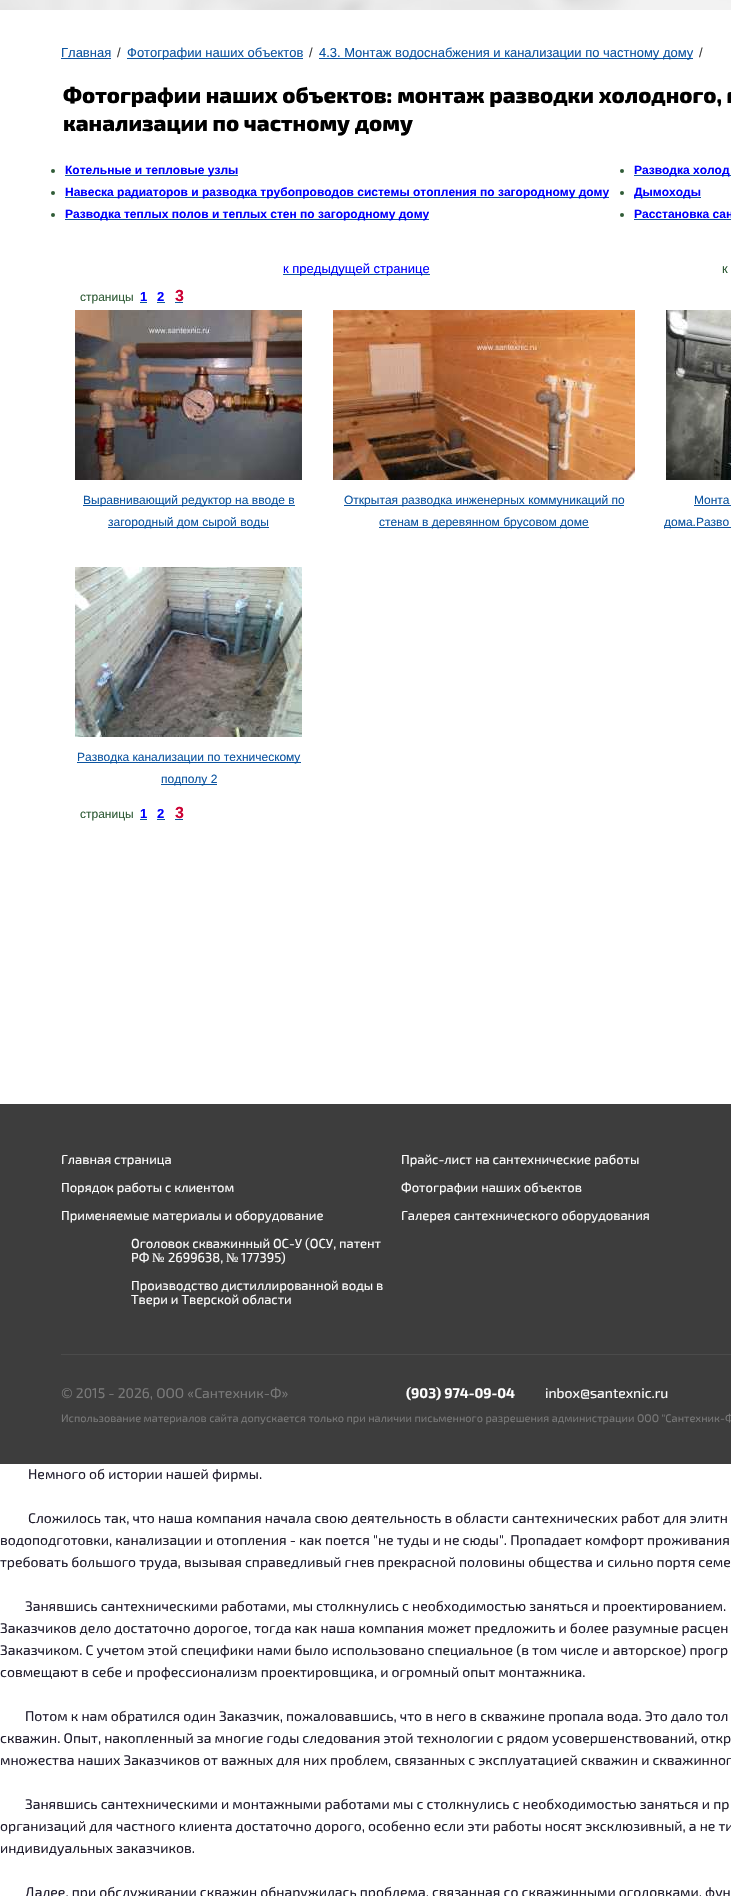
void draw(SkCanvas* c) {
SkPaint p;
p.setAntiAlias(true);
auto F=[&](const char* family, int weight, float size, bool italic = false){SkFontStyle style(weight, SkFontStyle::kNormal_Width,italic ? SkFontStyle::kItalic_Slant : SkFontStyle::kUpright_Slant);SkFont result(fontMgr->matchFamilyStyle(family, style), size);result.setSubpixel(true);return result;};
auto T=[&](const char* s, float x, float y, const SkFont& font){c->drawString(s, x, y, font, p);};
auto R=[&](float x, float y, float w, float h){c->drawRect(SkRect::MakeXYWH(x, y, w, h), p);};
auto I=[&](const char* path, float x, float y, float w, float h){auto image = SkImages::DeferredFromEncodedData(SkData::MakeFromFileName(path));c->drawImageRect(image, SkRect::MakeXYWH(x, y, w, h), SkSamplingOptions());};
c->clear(0xffffffff);
I("1.png",0,0,731,10);
auto f1 = F("Liberation Sans",400,13);
p.setColor(0xff0c54a0);
T("Главная",61,57,f1);
R(61,58,50,1);
p.setColor(0xff3d3d3d);
T("/",117,57,f1);
p.setColor(0xff0c54a0);
R(127,58,176,1);
T("Фотографии наших объектов",127,57,f1);
p.setColor(0xff3d3d3d);
T("/",309,57,f1);
p.setColor(0xff0c54a0);
R(319,58,374,1);
T("4.3. Монтаж водоснабжения и канализации по частному дому",319,57,f1);
p.setColor(0xff3d3d3d);
T("/",699,57,f1);
auto f2 = F("Exo 2",800,22);
p.setColor(0xff000000);
T("Фотографии наших объектов: монтаж разводки холодного, г",63,103,f2);
T("канализации по частному дому",63,131,f2);
p.setColor(0xff305c37);
c->drawCircle(53,171,2,p);
p.setColor(0xff0c54a0);
R(65,175,173,1);
auto f3 = F("Liberation Sans",700,12);
p.setColor(0xff0000ff);
T("Котельные и тепловые узлы",65,174,f3);
p.setColor(0xff305c37);
c->drawCircle(53,193,2,p);
p.setColor(0xff0c54a0);
R(65,197,544,1);
p.setColor(0xff0000ff);
T("Навеска радиаторов и разводка трубопроводов системы отопления по загородному дому",65,196,f3);
p.setColor(0xff305c37);
c->drawCircle(53,215,2,p);
p.setColor(0xff0c54a0);
R(65,219,364,1);
p.setColor(0xff0000ff);
T("Разводка теплых полов и теплых стен по загородному дому",65,218,f3);
p.setColor(0xff305c37);
c->drawCircle(622,171,2,p);
p.setColor(0xff0c54a0);
R(634,175,97,1);
p.setColor(0xff0000ff);
T("Разводка холод",634,174,f3);
p.setColor(0xff305c37);
c->drawCircle(622,193,2,p);
p.setColor(0xff0c54a0);
R(634,197,67,1);
p.setColor(0xff0000ff);
T("Дымоходы",634,196,f3);
p.setColor(0xff305c37);
c->drawCircle(622,215,2,p);
p.setColor(0xff0000ff);
T("Расстановка сан",634,218,f3);
p.setColor(0xff0c54a0);
R(634,219,97,1);
R(283,274,147,1);
p.setColor(0xff0000ff);
T("к предыдущей странице",283,273,f1);
p.setColor(0xff305c37);
T("к",722,273,f1);
auto f4 = F("Liberation Sans",400,12);
T("страницы",80,301,f4);
auto f5 = F("Liberation Sans",700,13);
p.setColor(0xff0000ff);
T("1",140,301,f5);
p.setColor(0xff0c54a0);
R(140,302,7,1);
p.setColor(0xff0000ff);
T("2",157,301,f5);
p.setColor(0xff0c54a0);
R(157,302,8,1);
auto f6 = F("Liberation Sans",700,16);
p.setColor(0xffcc0033);
T("3",175,301,f6);
p.setColor(0xff0c54a0);
R(175,302,8,1);
I("2.png",75,310,227,170);
I("3.png",333,310,302,170);
I("4.png",666,310,65,170);
R(83,505,212,1);
T("Выравнивающий редуктор на вводе в",83,504,f4);
R(108,527,161,1);
T("загородный дом сырой воды",108,526,f4);
R(344,505,280,1);
T("Открытая разводка инженерных коммуникаций по",344,504,f4);
R(379,527,210,1);
T("стенам в деревянном брусовом доме",379,526,f4);
T("Монта",694,504,f4);
R(694,505,37,1);
R(664,527,67,1);
T("дома.Разво",664,526,f4);
I("5.png",75,567,227,170);
R(77,762,224,1);
T("Разводка канализации по техническому",77,761,f4);
R(161,784,56,1);
T("подполу 2",161,783,f4);
p.setColor(0xff305c37);
T("страницы",80,818,f4);
p.setColor(0xff0000ff);
T("1",140,818,f5);
p.setColor(0xff0c54a0);
R(140,819,7,1);
p.setColor(0xff0000ff);
T("2",157,818,f5);
p.setColor(0xff0c54a0);
R(157,819,8,1);
p.setColor(0xffcc0033);
T("3",175,818,f6);
p.setColor(0xff0c54a0);
R(175,819,8,1);
p.setColor(0xff3d3d3d);
R(0,1104,731,360);
auto f7 = F("Exo 2",400,13);
p.setColor(0xffffffff);
T("Главная страница",61,1164,f7);
T("Порядок работы с клиентом",61,1192,f7);
T("Применяемые материалы и оборудование",61,1220,f7);
T("Прайс-лист на сантехнические работы",401,1164,f7);
T("Фотографии наших объектов",401,1192,f7);
T("Галерея сантехнического оборудования",401,1220,f7);
T("Оголовок скважинный ОС-У (ОСУ, патент",131,1248,f7);
T("РФ",131,1262,f7);
auto f8 = F("Liberation Serif",400,13);
T("№",152,1262,f8);
T("2699638,",168,1262,f7);
T("№",226,1262,f8);
T("177395)",241,1262,f7);
T("Производство дистиллированной воды в",131,1290,f7);
T("Твери и Тверской области",131,1304,f7);
p.setColor(0xff4b4b4b);
R(61,1354,670,1);
auto f9 = F("Exo 2",400,14);
p.setColor(0xff797979);
T("© 2015 - 2026, ООО «Сантехник-Ф»",61,1398,f9);
auto f10 = F("Exo 2",700,14);
p.setColor(0xffffffff);
T("(903) 974-09-04",406,1398,f10);
T("inbox@santexnic.ru",545,1398,f9);
auto f11 = F("Exo 2",400,11);
p.setColor(0xff797979);
T("Использование материалов сайта допускается только при наличии письменного разрешения администрации ООО \"Сантехник-Ф",61,1422,f11);
p.setColor(0xff1d1a2b);
T("Немного об истории нашей фирмы.",28,1479,f9);
T("Сложилось так, что наша компания начала свою деятельность в области сантехнических работ для элитн",28,1523,f9);
T("водоподготовки, канализации и отопления - как поется \"не туды и не сюды\". Пропадает комфорт проживания",0,1545,f9);
T("требовать большого труда, вызывая справедливый гнев прекрасной половины общества и сильно портя семе",0,1567,f9);
T("Занявшись сантехническими работами, мы столкнулись с необходимостью заняться и проектированием.",25,1611,f9);
T("Заказчиков дело достаточно дорогое, тогда как наша компания может предложить и более разумные расцен",0,1633,f9);
T("Заказчиком. С учетом этой специфики нами было использовано специальное (в том числе и авторское) прогр",0,1655,f9);
T("совмещают в себе и профессионализм проектировщика, и огромный опыт монтажника.",0,1677,f9);
T("Потом к нам обратился один Заказчик, пожаловавшись, что в него в скважине пропала вода. Это дало тол",25,1721,f9);
T("скважин. Опыт, накопленный за многие годы следования этой технологии с рядом усовершенствований, откр",0,1743,f9);
T("множества наших Заказчиков от важных для них проблем, связанных с эксплуатацией скважин и скважинног",0,1765,f9);
T("Занявшись сантехническими и монтажными работами мы с столкнулись с необходимостью заняться и пр",25,1809,f9);
T("организаций для частного клиента достаточно дорого, особенно если эти работы носят эксклюзивный, а не ти",0,1831,f9);
T("индивидуальных заказчиков.",0,1853,f9);
T("Далее, при обслуживании скважин обнаружилась проблема, связанная со скважинными оголовками, фун",25,1897,f9);
}
